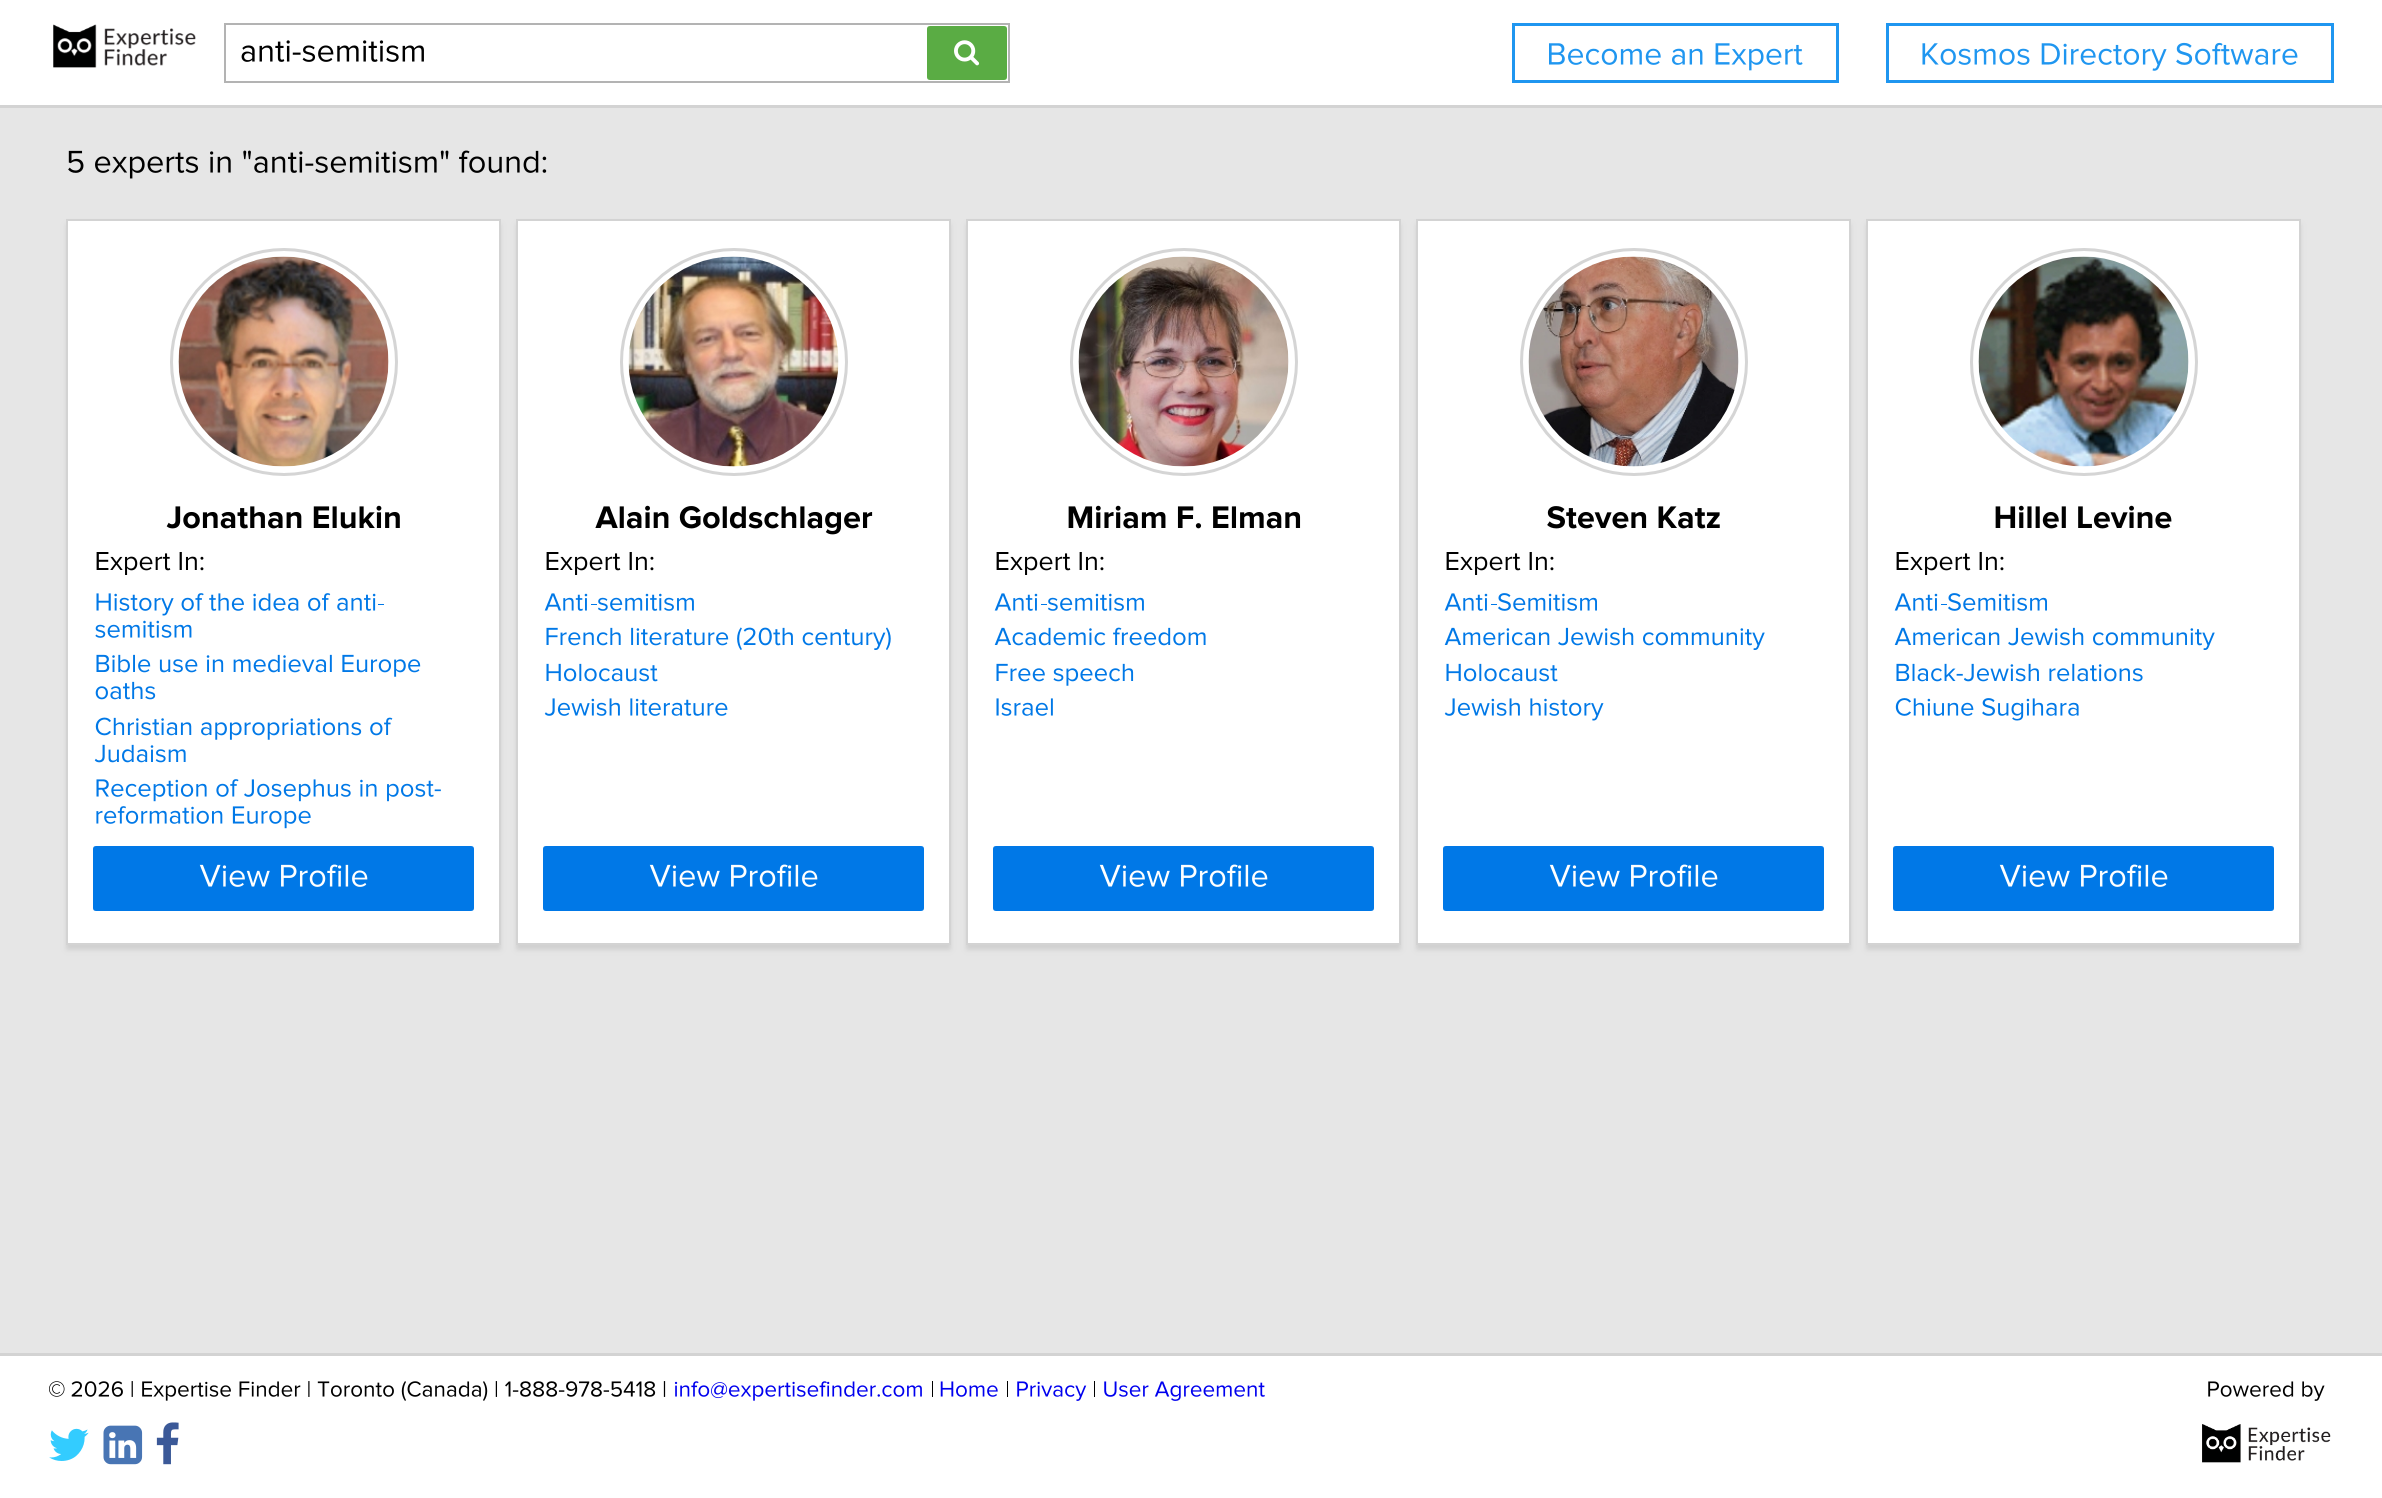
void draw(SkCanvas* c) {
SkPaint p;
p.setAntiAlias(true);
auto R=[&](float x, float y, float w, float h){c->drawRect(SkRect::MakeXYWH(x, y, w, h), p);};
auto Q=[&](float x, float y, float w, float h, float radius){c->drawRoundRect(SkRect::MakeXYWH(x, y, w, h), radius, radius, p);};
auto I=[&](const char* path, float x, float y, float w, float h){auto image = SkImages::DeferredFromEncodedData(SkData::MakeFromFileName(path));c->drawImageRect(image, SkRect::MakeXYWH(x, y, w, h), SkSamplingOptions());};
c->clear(0xffe6e6e6);
p.setColor(0xffffffff);
R(0,0,2382,105);
p.setColor(0xffd3d3d3);
R(0,105,2382,3);
I("1.png",53,24,143,44);
p.setStroke(true);
p.setStrokeWidth(2);
p.setColor(0xffb3b3b3);
c->drawRect(SkRect::MakeXYWH(225,24,784,58),p);
I("2.png",241,40,183,22);
p.setStroke(false);
p.setColor(0xff5aac44);
Q(927,26,80,54,3);
I("3.png",954,40,26,26);
p.setStroke(true);
p.setStrokeWidth(3);
p.setColor(0xff1f96f0);
c->drawRect(SkRect::MakeXYWH(1513.5,24.5,324,57),p);
I("4.png",1549,43,254,28);
c->drawRect(SkRect::MakeXYWH(1887.5,24.5,445,57),p);
I("5.png",1922,42,376,29);
I("6.png",68,150,479,29);
p.setStroke(false);
p.setColor(0x17000000);
p.setMaskFilter(SkMaskFilter::MakeBlur(kNormal_SkBlurStyle, 2));
c->drawRect(SkRect::MakeXYWH(66,224,435,726),p);
p.setMaskFilter(nullptr);
p.setColor(0xffffffff);
c->drawRect(SkRect::MakeXYWH(67,220,433,724),p);
p.setStroke(true);
p.setStrokeWidth(2);
p.setColor(0xffd3d3d3);
c->drawRect(SkRect::MakeXYWH(67,220,433,724),p);
p.setStrokeWidth(3);
p.setColor(0xffd5d5d5);
c->drawCircle(284,362,112.5,p);
I("7.png",178,256,211,211);
I("8.png",166,505,234,24);
I("9.png",96,552,108,23);
I("10.png",96,593,235,23);
I("11.png",337,593,39,18);
p.setStroke(false);
p.setColor(0xff0078e7);
R(378,604,6,1);
I("12.png",95,620,97,18);
I("13.png",96,654,325,23);
I("14.png",95,681,61,19);
I("15.png",95,717,298,23);
I("16.png",94,744,92,19);
I("17.png",96,779,345,23);
I("18.png",96,806,215,23);
Q(93,846,381,65,3);
I("19.png",199,864,169,23);
p.setColor(0x17000000);
p.setMaskFilter(SkMaskFilter::MakeBlur(kNormal_SkBlurStyle, 2));
c->drawRect(SkRect::MakeXYWH(516,224,435,726),p);
p.setMaskFilter(nullptr);
p.setColor(0xffffffff);
c->drawRect(SkRect::MakeXYWH(517,220,433,724),p);
p.setStroke(true);
p.setStrokeWidth(2);
p.setColor(0xffd3d3d3);
c->drawRect(SkRect::MakeXYWH(517,220,433,724),p);
p.setStrokeWidth(3);
p.setColor(0xffd5d5d5);
c->drawCircle(734,362,112.5,p);
I("20.png",628,256,211,211);
I("21.png",595,505,278,30);
I("9.png",546,552,108,23);
I("22.png",544,593,44,18);
p.setStroke(false);
p.setColor(0xff0078e7);
R(591,604,6,1);
I("23.png",598,593,96,18);
I("24.png",546,627,345,23);
I("25.png",546,663,112,19);
I("26.png",544,698,184,18);
Q(543,846,381,65,3);
I("19.png",649,864,169,23);
p.setColor(0x17000000);
p.setMaskFilter(SkMaskFilter::MakeBlur(kNormal_SkBlurStyle, 2));
c->drawRect(SkRect::MakeXYWH(966,224,435,726),p);
p.setMaskFilter(nullptr);
p.setColor(0xffffffff);
c->drawRect(SkRect::MakeXYWH(967,220,433,724),p);
p.setStroke(true);
p.setStrokeWidth(2);
p.setColor(0xffd3d3d3);
c->drawRect(SkRect::MakeXYWH(967,220,433,724),p);
p.setStrokeWidth(3);
p.setColor(0xffd5d5d5);
c->drawCircle(1184,362,112.5,p);
I("27.png",1078,256,211,211);
I("28.png",1068,505,233,24);
I("9.png",996,552,108,23);
I("22.png",994,593,44,18);
p.setStroke(false);
p.setColor(0xff0078e7);
R(1041,604,6,1);
I("23.png",1048,593,96,18);
I("29.png",994,627,212,19);
I("30.png",996,663,138,23);
I("31.png",996,698,57,18);
Q(993,846,381,65,3);
I("19.png",1099,864,169,23);
p.setColor(0x17000000);
p.setMaskFilter(SkMaskFilter::MakeBlur(kNormal_SkBlurStyle, 2));
c->drawRect(SkRect::MakeXYWH(1416,224,435,726),p);
p.setMaskFilter(nullptr);
p.setColor(0xffffffff);
c->drawRect(SkRect::MakeXYWH(1417,220,433,724),p);
p.setStroke(true);
p.setStrokeWidth(2);
p.setColor(0xffd3d3d3);
c->drawRect(SkRect::MakeXYWH(1417,220,433,724),p);
p.setStrokeWidth(3);
p.setColor(0xffd5d5d5);
c->drawCircle(1634,362,112.5,p);
I("32.png",1528,256,211,211);
I("33.png",1547,506,173,23);
I("9.png",1446,552,108,23);
I("22.png",1444,593,44,18);
p.setStroke(false);
p.setColor(0xff0078e7);
R(1491,604,6,1);
I("34.png",1498,593,99,18);
I("35.png",1444,627,321,23);
I("25.png",1446,663,112,19);
I("36.png",1444,698,160,23);
Q(1443,846,381,65,3);
I("19.png",1549,864,169,23);
p.setColor(0x17000000);
p.setMaskFilter(SkMaskFilter::MakeBlur(kNormal_SkBlurStyle, 2));
c->drawRect(SkRect::MakeXYWH(1866,224,435,726),p);
p.setMaskFilter(nullptr);
p.setColor(0xffffffff);
c->drawRect(SkRect::MakeXYWH(1867,220,433,724),p);
p.setStroke(true);
p.setStrokeWidth(2);
p.setColor(0xffd3d3d3);
c->drawRect(SkRect::MakeXYWH(1867,220,433,724),p);
p.setStrokeWidth(3);
p.setColor(0xffd5d5d5);
c->drawCircle(2084,362,112.5,p);
I("37.png",1978,256,211,211);
I("38.png",1995,505,177,24);
I("9.png",1896,552,108,23);
I("22.png",1894,593,44,18);
p.setStroke(false);
p.setColor(0xff0078e7);
R(1941,604,6,1);
I("34.png",1948,593,99,18);
I("35.png",1894,627,321,23);
I("39.png",1896,663,247,19);
I("40.png",1895,698,184,23);
Q(1893,846,381,65,3);
I("19.png",1999,864,169,23);
p.setColor(0xffffffff);
R(0,1356,2382,142);
p.setColor(0xffd3d3d3);
R(0,1353,2382,3);
I("41.png",49,1381,16,16);
I("42.png",71,1381,595,20);
I("43.png",674,1381,248,20);
p.setColor(0xff000000);
R(932,1381,1,16);
I("44.png",940,1381,58,16);
R(1007,1381,1,16);
I("45.png",1017,1381,70,20);
R(1094,1381,1,16);
I("46.png",1104,1381,161,20);
I("47.png",49,1428,40,33);
I("48.png",103,1425,40,40);
I("49.png",156,1422,23,43);
I("50.png",2208,1381,117,20);
I("51.png",2202,1424,129,39);
}
